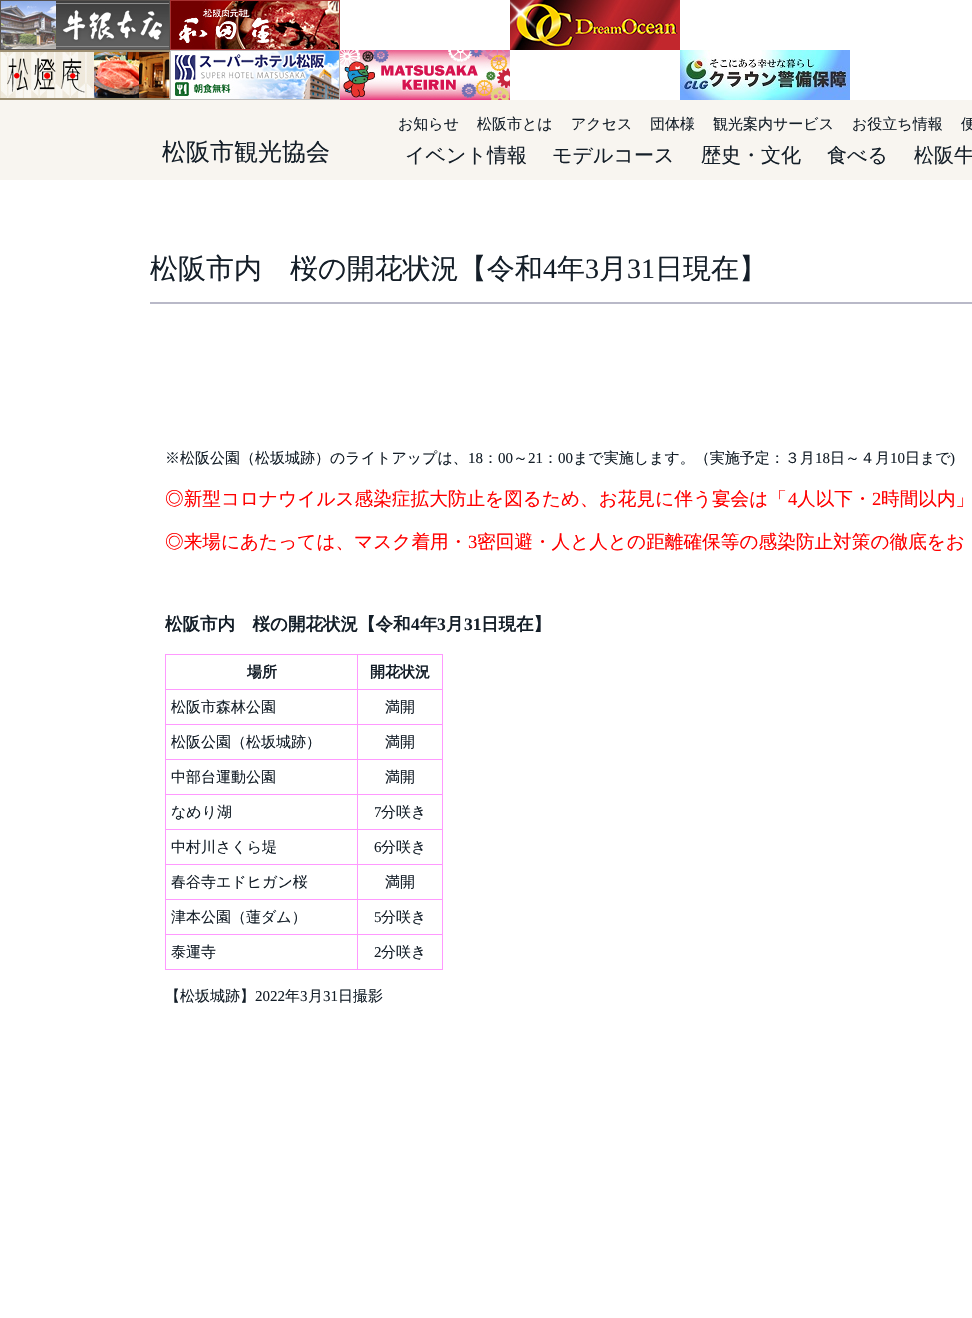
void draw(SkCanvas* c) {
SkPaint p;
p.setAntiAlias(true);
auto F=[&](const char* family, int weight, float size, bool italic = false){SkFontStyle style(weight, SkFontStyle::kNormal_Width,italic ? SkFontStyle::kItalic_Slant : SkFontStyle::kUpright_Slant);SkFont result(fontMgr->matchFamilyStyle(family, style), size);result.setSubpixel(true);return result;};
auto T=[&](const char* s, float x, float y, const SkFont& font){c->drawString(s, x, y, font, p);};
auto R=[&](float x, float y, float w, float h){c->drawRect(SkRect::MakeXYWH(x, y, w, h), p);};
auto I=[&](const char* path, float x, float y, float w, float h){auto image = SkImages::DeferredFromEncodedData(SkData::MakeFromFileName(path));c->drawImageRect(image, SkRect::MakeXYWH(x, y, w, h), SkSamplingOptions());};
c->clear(0xffffffff);
I("1.png",0,0,170,50);
I("2.png",170,0,170,50);
I("3.png",510,0,170,50);
I("4.png",0,50,170,50);
I("5.png",170,50,170,50);
I("6.png",340,50,170,50);
I("7.png",680,50,170,50);
p.setColor(0xfff8f5f0);
R(0,100,972,80);
auto f1 = F("WenQuanYi Zen Hei",500,24);
p.setColor(0xff141e28);
T("松阪市観光協会",162,160,f1);
auto f2 = F("WenQuanYi Zen Hei",500,15);
T("お知らせ",398,129,f2);
T("松阪市とは",477,129,f2);
T("アクセス",571,129,f2);
T("団体様",650,129,f2);
T("観光案内サービス",713,129,f2);
T("お役立ち情報",852,129,f2);
T("便",961,129,f2);
auto f3 = F("WenQuanYi Zen Hei",500,20);
T("イベント情報",405,162,f3);
T("モデルコース",552,162,f3);
T("歴史・文化",701,162,f3);
T("食べる",827,162,f3);
T("松阪牛",914,162,f3);
p.setColor(0xffb9b9c8);
R(150,302,822,2);
auto f4 = F("WenQuanYi Zen Hei",500,28);
p.setColor(0xff141e28);
T("松阪市内　桜の開花状況【令和",150,278,f4);
auto f5 = F("Liberation Serif",400,28);
T("4",543,278,f5);
T("年",557,278,f4);
T("3",585,278,f5);
T("月",599,278,f4);
T("31",627,278,f5);
T("日現在】",655,278,f4);
T("※松阪公園（松坂城跡）のライトアップは、",165,463,f2);
auto f6 = F("Liberation Serif",400,15);
T("18",468,463,f6);
T("：",483,463,f2);
T("00",498,463,f6);
T("～",513,463,f2);
T("21",528,463,f6);
T("：",543,463,f2);
T("00",558,463,f6);
T("まで実施します。（実施予定：３月",573,463,f2);
T("18",815,463,f6);
T("日～４月",830,463,f2);
T("10",890,463,f6);
T("日まで",905,463,f2);
T(")",950,463,f6);
auto f7 = F("WenQuanYi Zen Hei",500,18.65);
p.setColor(0xffff0000);
T("◎新型コロナウイルス感染症拡大防止を図るため、お花見に伴う宴会は「",165,505,f7);
auto f8 = F("Liberation Serif",400,18.65);
T("4",788,505,f8);
T("人以下・",797,505,f7);
T("2",872,505,f8);
T("時間以内」",881,505,f7);
T("◎来場にあたっては、マスク着用・",165,548,f7);
T("3",468,548,f8);
T("密回避・人と人との距離確保等の感染防止対策の徹底をお",477,548,f7);
auto f9 = F("WenQuanYi Zen Hei",700,17.5);
p.setColor(0xff141e28);
T("松阪市内　桜の開花状況【令和",165,630,f9);
auto f10 = F("Liberation Serif",700,17.5);
T("4",411,630,f10);
T("年",420,630,f9);
T("3",437,630,f10);
T("月",446,630,f9);
T("31",464,630,f10);
T("日現在】",481,630,f9);
p.setColor(0xffff99ff);
R(357,654,86,1);
R(357,689,86,1);
R(357,724,86,1);
R(357,759,86,1);
R(357,794,86,1);
R(357,829,86,1);
R(357,864,86,1);
R(357,899,86,1);
R(357,934,86,1);
R(442,934,1,36);
R(357,969,86,1);
R(357,934,1,36);
R(165,934,193,1);
R(357,899,1,36);
R(165,899,193,1);
R(357,864,1,36);
R(165,864,193,1);
R(357,829,1,36);
R(165,829,193,1);
R(357,794,1,36);
R(165,794,193,1);
R(357,759,1,36);
R(165,759,193,1);
R(357,724,1,36);
R(165,724,193,1);
R(357,689,1,36);
R(165,689,193,1);
R(357,654,1,36);
R(165,654,193,1);
R(165,969,193,1);
R(165,934,1,36);
R(165,899,1,36);
R(165,864,1,36);
R(165,829,1,36);
R(165,794,1,36);
R(165,759,1,36);
R(165,724,1,36);
R(165,689,1,36);
R(165,654,1,36);
auto f11 = F("WenQuanYi Zen Hei",700,15);
p.setColor(0xff141e28);
T("場所",247,677,f11);
p.setColor(0xffff99ff);
R(442,899,1,36);
R(442,864,1,36);
R(442,829,1,36);
R(442,794,1,36);
R(442,759,1,36);
R(442,724,1,36);
R(442,689,1,36);
R(442,654,1,36);
p.setColor(0xff141e28);
T("開花状況",370,677,f11);
T("松阪市森林公園",171,712,f2);
T("満開",385,712,f2);
T("松阪公園（松坂城跡）",171,747,f2);
T("満開",385,747,f2);
T("中部台運動公園",171,782,f2);
T("満開",385,782,f2);
T("なめり湖",171,817,f2);
T("7",374,817,f6);
T("分咲き",381,817,f2);
T("中村川さくら堤",171,852,f2);
T("6",374,852,f6);
T("分咲き",381,852,f2);
T("春谷寺エドヒガン桜",171,887,f2);
T("満開",385,887,f2);
T("津本公園（蓮ダム）",171,922,f2);
T("5",374,922,f6);
T("分咲き",381,922,f2);
T("泰運寺",171,957,f2);
T("2",374,957,f6);
T("分咲き",381,957,f2);
T("【松坂城跡】",165,1001,f2);
T("2022",255,1001,f6);
T("年",285,1001,f2);
T("3",300,1001,f6);
T("月",308,1001,f2);
T("31",323,1001,f6);
T("日撮影",338,1001,f2);
}
